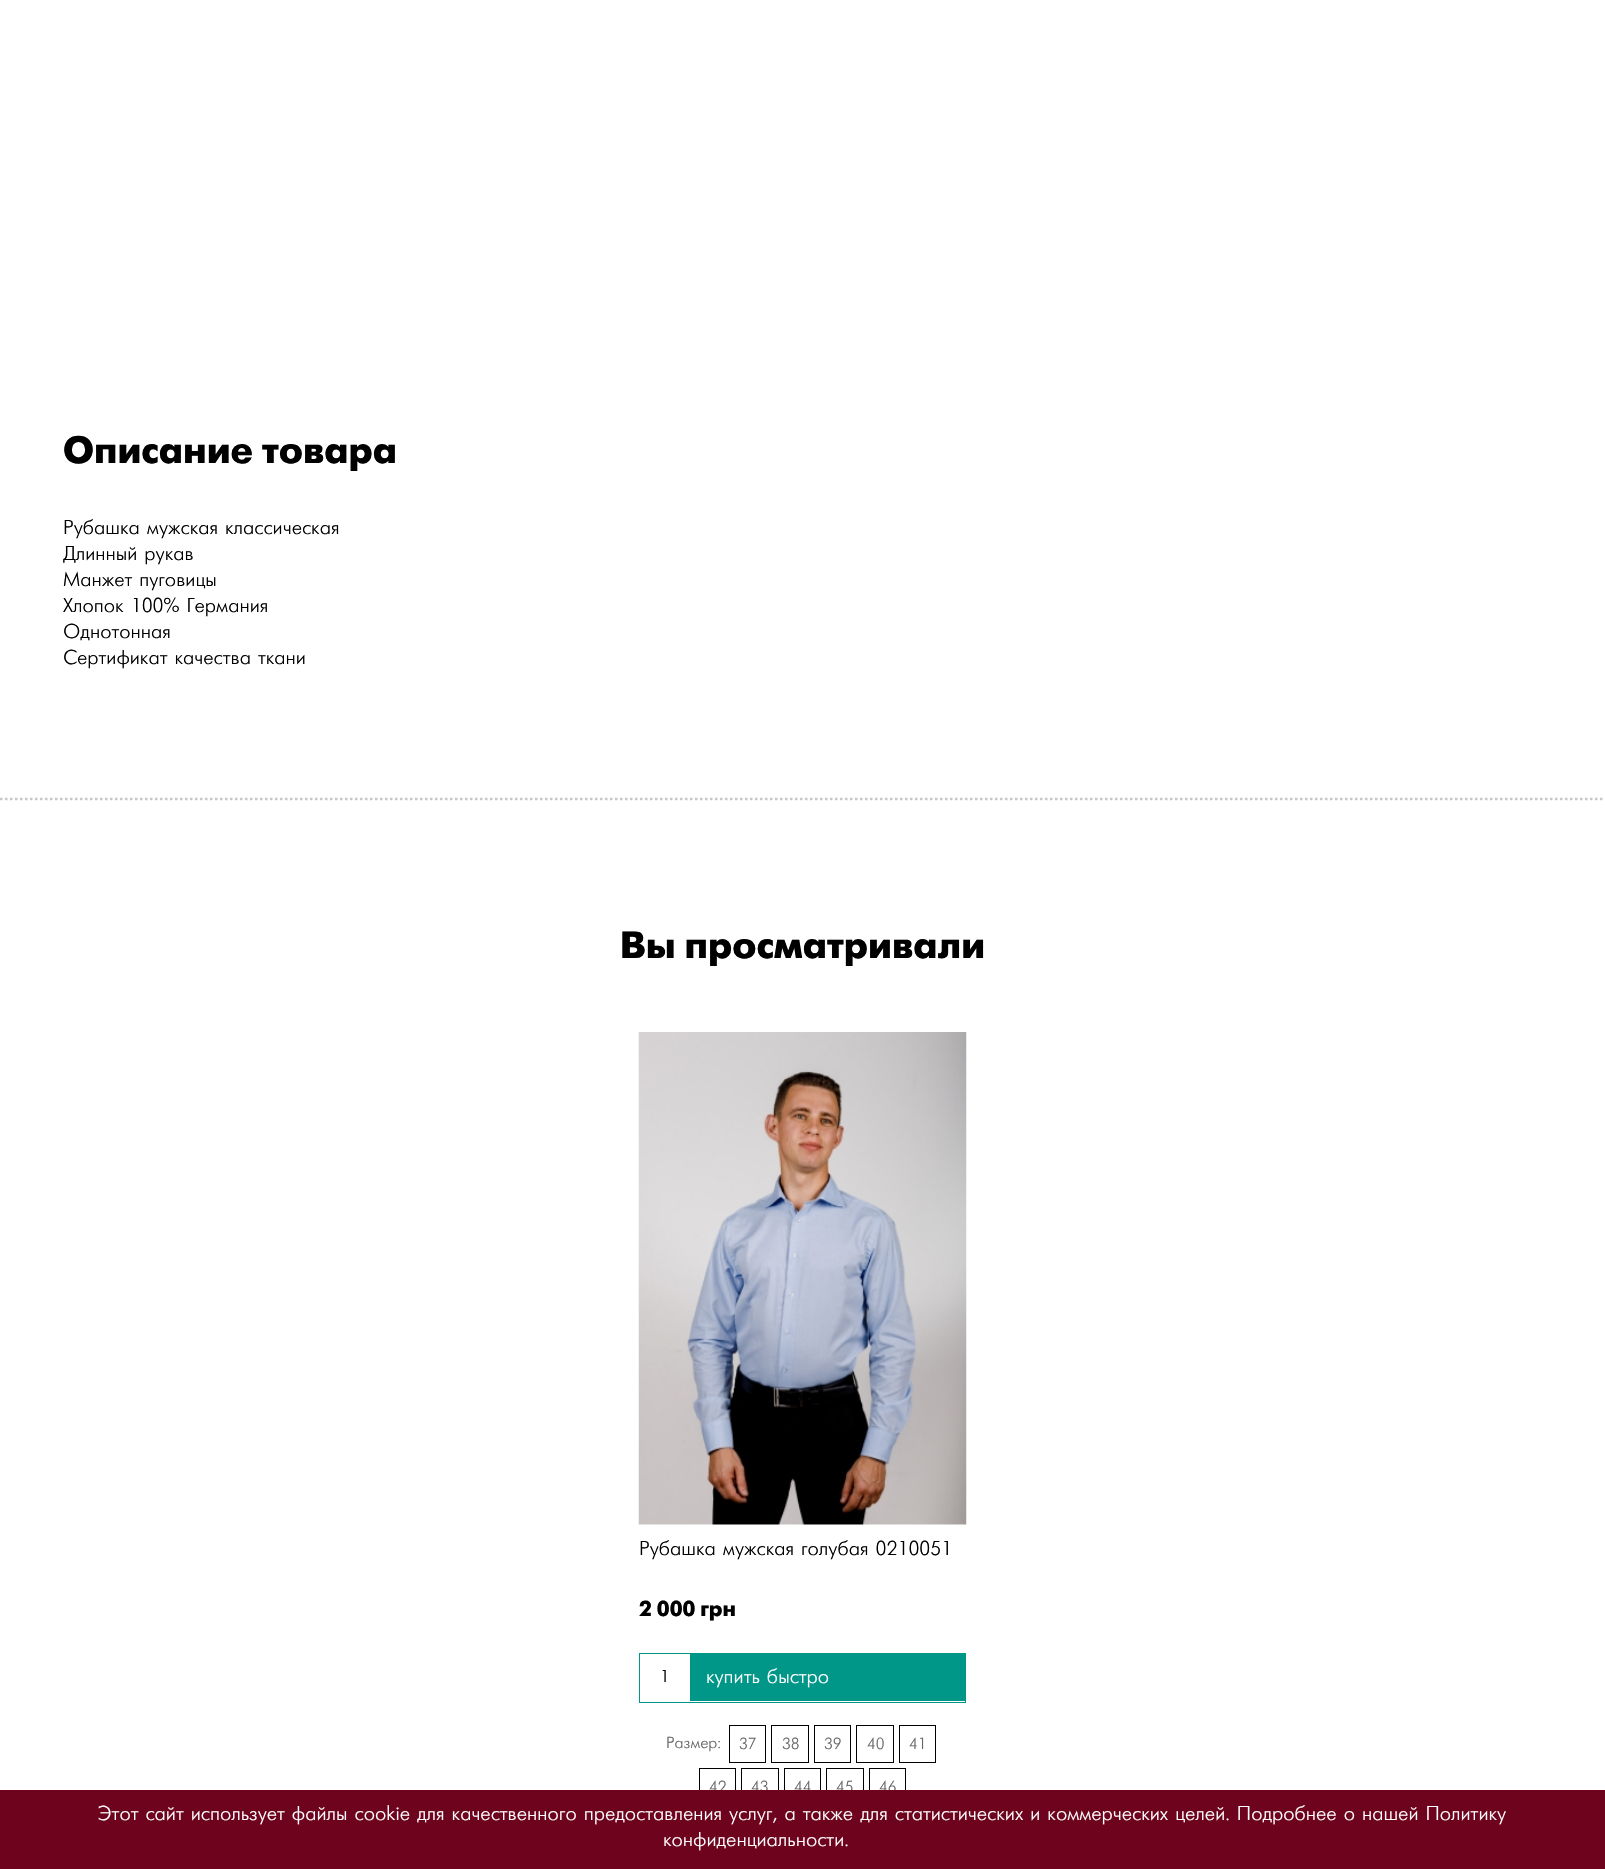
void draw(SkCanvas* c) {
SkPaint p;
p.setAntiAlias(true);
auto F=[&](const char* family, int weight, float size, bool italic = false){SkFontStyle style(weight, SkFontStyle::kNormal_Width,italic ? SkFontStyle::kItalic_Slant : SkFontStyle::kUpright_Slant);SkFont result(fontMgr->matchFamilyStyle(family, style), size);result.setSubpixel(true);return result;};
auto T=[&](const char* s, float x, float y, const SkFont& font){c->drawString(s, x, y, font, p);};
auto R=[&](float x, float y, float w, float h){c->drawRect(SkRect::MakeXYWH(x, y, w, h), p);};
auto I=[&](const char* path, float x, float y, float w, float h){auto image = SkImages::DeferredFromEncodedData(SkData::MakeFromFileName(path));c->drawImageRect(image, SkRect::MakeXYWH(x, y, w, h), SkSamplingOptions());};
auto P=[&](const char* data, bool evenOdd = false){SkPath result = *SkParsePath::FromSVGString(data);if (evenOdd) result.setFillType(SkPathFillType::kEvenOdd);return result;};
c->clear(0xffffffff);
auto f1 = F("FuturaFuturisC",700,38);
p.setColor(0xff000000);
T("Описание товара",63,463,f1);
auto f2 = F("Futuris",400,20);
T("Рубашка мужская классическая",63,534,f2);
T("Длинный рукав",63,560,f2);
T("Манжет пуговицы",63,586,f2);
T("Хлопок 100% Германия",63,612,f2);
T("Однотонная",63,638,f2);
T("Сертификат качества ткани",63,664,f2);
p.setStroke(true);
p.setStrokeWidth(2.5);
p.setColor(0xffc7c7c7);
p.setPathEffect(SkDashPathEffect::Make({{2.5f,2.5f}}, 0));
c->drawPath(P("M0 799h1605"),p);
p.setPathEffect(nullptr);
p.setStroke(false);
p.setColor(0xff000000);
T("Вы просматривали",620,958,f1);
I("1.png",638,1032,329,493);
T("Рубашка мужская голубая 0210051",639,1555,f2);
auto f3 = F("FuturaFuturisC",700,21.5);
T("2 000 грн",639,1616,f3);
p.setStroke(true);
p.setStrokeWidth(1);
p.setColor(0xff009688);
c->drawRect(SkRect::MakeXYWH(639.5,1653.5,326,49),p);
auto f4 = F("Futuris",400,17);
p.setStroke(false);
p.setColor(0xff000000);
T("1",660,1682,f4);
p.setColor(0xff009688);
R(690,1654,275,47);
p.setColor(0xffffffff);
T("купить быстро",706,1683,f2);
auto f5 = F("Futuris",400,16);
p.setColor(0xff666666);
T("Размер:",666,1748,f5);
p.setStroke(true);
p.setColor(0xff000000);
c->drawRect(SkRect::MakeXYWH(729.5,1725.5,36,37),p);
p.setStroke(false);
p.setColor(0xff666666);
T("37",739,1749,f5);
p.setStroke(true);
p.setColor(0xff000000);
c->drawRect(SkRect::MakeXYWH(771.5,1725.5,37,37),p);
p.setStroke(false);
p.setColor(0xff666666);
T("38",782,1749,f5);
p.setStroke(true);
p.setColor(0xff000000);
c->drawRect(SkRect::MakeXYWH(814.5,1725.5,36,37),p);
p.setStroke(false);
p.setColor(0xff666666);
T("39",824,1749,f5);
p.setStroke(true);
p.setColor(0xff000000);
c->drawRect(SkRect::MakeXYWH(856.5,1725.5,37,37),p);
p.setStroke(false);
p.setColor(0xff666666);
T("40",867,1749,f5);
p.setStroke(true);
p.setColor(0xff000000);
c->drawRect(SkRect::MakeXYWH(899.5,1725.5,36,37),p);
p.setStroke(false);
p.setColor(0xff666666);
T("41",909,1749,f5);
p.setStroke(true);
p.setColor(0xff000000);
c->drawRect(SkRect::MakeXYWH(699.5,1768.5,36,36),p);
p.setStroke(false);
p.setColor(0xff666666);
T("42",709,1792,f5);
p.setStroke(true);
p.setColor(0xff000000);
c->drawRect(SkRect::MakeXYWH(741.5,1768.5,37,36),p);
p.setStroke(false);
p.setColor(0xff666666);
T("43",751,1792,f5);
p.setStroke(true);
p.setColor(0xff000000);
c->drawRect(SkRect::MakeXYWH(784.5,1768.5,36,36),p);
p.setStroke(false);
p.setColor(0xff666666);
T("44",794,1792,f5);
p.setStroke(true);
p.setColor(0xff000000);
c->drawRect(SkRect::MakeXYWH(826.5,1768.5,37,36),p);
p.setStroke(false);
p.setColor(0xff666666);
T("45",836,1792,f5);
p.setStroke(true);
p.setColor(0xff000000);
c->drawRect(SkRect::MakeXYWH(869.5,1768.5,36,36),p);
p.setStroke(false);
p.setColor(0xff666666);
T("46",879,1792,f5);
p.setColor(0xff6d031c);
R(0,1790,1605,79);
p.setColor(0xffffffff);
T("Этот сайт использует файлы cookie для качественного предоставления услуг, а также для статистических и коммерческих целей. Подробнее о нашей Политику",98,1820,f2);
T("конфиденциальности.",663,1846,f2);
}
